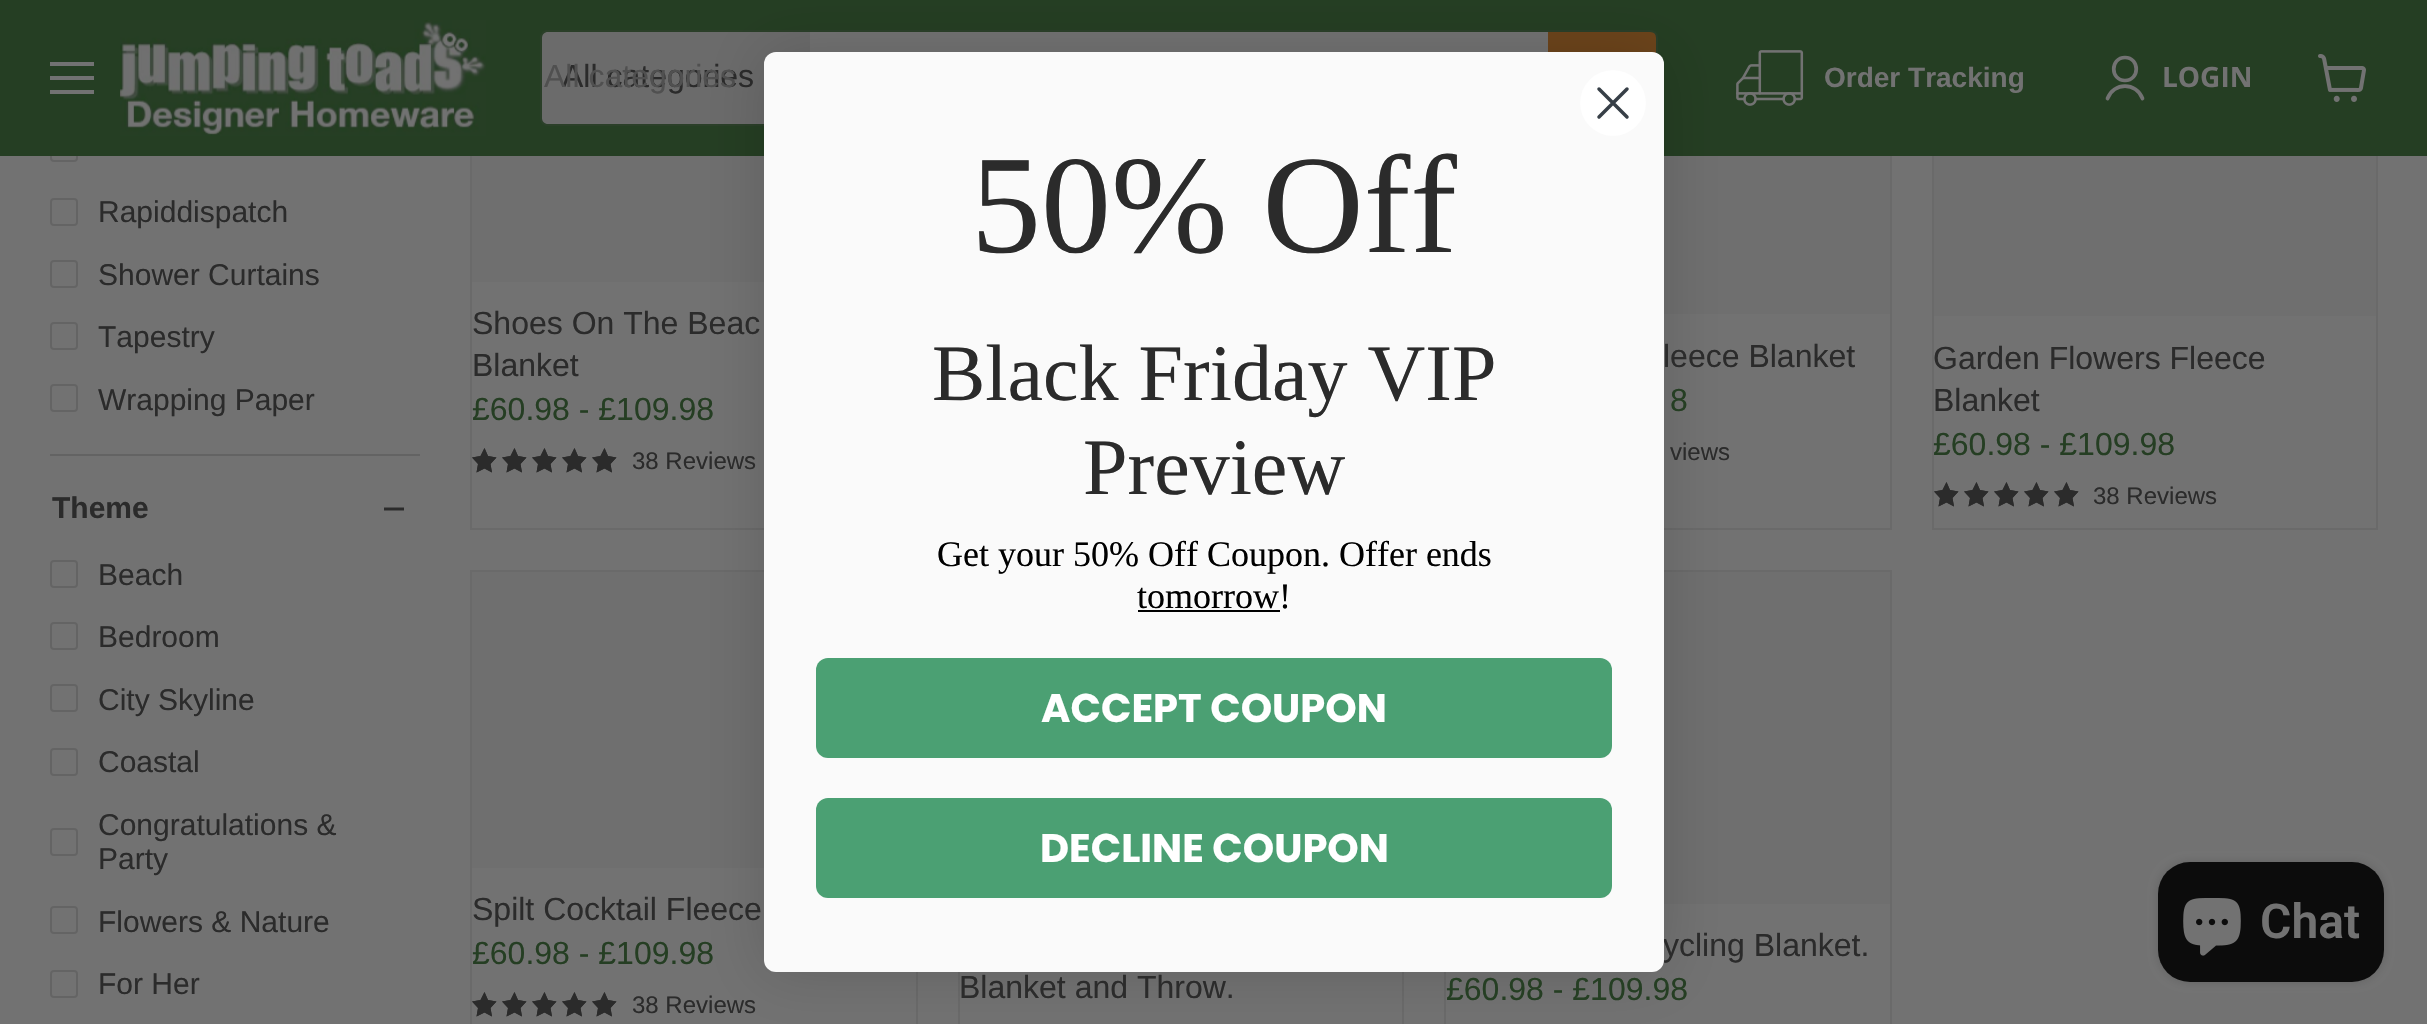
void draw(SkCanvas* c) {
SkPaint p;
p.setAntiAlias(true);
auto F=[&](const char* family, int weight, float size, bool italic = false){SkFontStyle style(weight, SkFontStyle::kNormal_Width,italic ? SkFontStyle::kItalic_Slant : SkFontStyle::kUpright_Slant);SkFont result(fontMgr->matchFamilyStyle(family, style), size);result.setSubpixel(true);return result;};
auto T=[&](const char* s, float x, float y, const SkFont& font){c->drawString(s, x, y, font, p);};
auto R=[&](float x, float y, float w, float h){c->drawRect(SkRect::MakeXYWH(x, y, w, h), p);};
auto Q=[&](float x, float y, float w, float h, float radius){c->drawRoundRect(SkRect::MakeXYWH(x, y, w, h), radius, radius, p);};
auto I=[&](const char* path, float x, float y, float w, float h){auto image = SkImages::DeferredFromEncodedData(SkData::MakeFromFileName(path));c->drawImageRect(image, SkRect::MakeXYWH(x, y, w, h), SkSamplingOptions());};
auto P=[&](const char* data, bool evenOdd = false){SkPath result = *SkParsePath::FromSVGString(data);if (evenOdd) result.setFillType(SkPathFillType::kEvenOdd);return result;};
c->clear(0xff727272);
p.setStroke(true);
p.setStrokeWidth(2);
p.setColor(0xff646464);
c->drawRoundRect(SkRect::MakeXYWH(51,135,26,26),3,3,p);
p.setColor(0xff6a6a6a);
c->drawRect(SkRect::MakeXYWH(471,-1,446,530),p);
c->drawRect(SkRect::MakeXYWH(1445,-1,446,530),p);
c->drawRect(SkRect::MakeXYWH(1933,-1,444,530),p);
p.setStroke(false);
p.setColor(0xff253e23);
R(0,0,2427,156);
p.setColor(0xff727272);
R(50,62,44,4);
R(50,76,44,4);
R(50,90,44,4);
I("1.png",120,20,366,116);
p.setStroke(true);
p.setColor(0x333f3f3f);
c->drawRoundRect(SkRect::MakeXYWH(541,31,1116,94),7,7,p);
p.setStroke(false);
p.setColor(0xff6b6b6b);
c->drawPath(P("M548 32h262v92h-262c-3.5 0-6-2.5-6-6v-80c0-3.5 2.5-6 6-6z"),p);
auto f1 = F("Liberation Sans",400,32);
p.setColor(0xff2b2b2b);
T("All categories",562,87,f1);
p.setColor(0xff505050);
T("All categories",544,87,f1);
p.setColor(0xff727272);
R(810,32,738,20);
p.setColor(0xff6c441b);
c->drawPath(P("M1549 33h101c3 0 5 2 5 5v80c0 3-2 5-5 5h-101z"),p);
p.setStroke(true);
c->drawPath(P("M1549 33h101c3 0 5 2 5 5v80c0 3-2 5-5 5h-101z"),p);
I("2.png",1736,50,68,56);
auto f2 = F("Liberation Sans",700,28);
p.setStroke(false);
p.setColor(0xff727272);
T("Order Tracking",1824,87,f2);
p.setStroke(true);
p.setStrokeWidth(3.7);
p.setStrokeCap(SkPaint::kRound_Cap);
p.setStrokeJoin(SkPaint::kRound_Join);
c->drawPath(P("M2125 80.5c15 0 15-23 0-23c-15 0-15 23 0 23zm17.5 18c-6-16.5-29-16.5-35 0"),p);
auto f3 = F("Open Sans",700,28);
p.setStroke(false);
T("LOGIN",2162,87,f3);
I("3.png",2318,54,48,48);
p.setColor(0xff6f6f6f);
R(472,156,292,126);
R(1664,156,226,158);
p.setStroke(true);
p.setStrokeWidth(2);
p.setStrokeCap(SkPaint::kButt_Cap);
p.setStrokeJoin(SkPaint::kMiter_Join);
p.setColor(0xff6a6a6a);
c->drawRect(SkRect::MakeXYWH(471,571,446,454),p);
p.setStroke(false);
p.setColor(0xff6f6f6f);
R(472,572,292,296);
p.setStroke(true);
p.setColor(0xff6a6a6a);
c->drawRect(SkRect::MakeXYWH(959,571,444,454),p);
c->drawRect(SkRect::MakeXYWH(1445,571,446,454),p);
p.setStroke(false);
p.setColor(0xff6f6f6f);
R(1664,572,226,332);
p.setColor(0x26000000);
p.setMaskFilter(SkMaskFilter::MakeBlur(kNormal_SkBlurStyle, 30));
c->drawRoundRect(SkRect::MakeXYWH(764,52,900,920),12,12,p);
p.setMaskFilter(nullptr);
p.setColor(0xff2b2b2b);
T("ycling Blanket.",1663,956,f1);
p.setColor(0xfffafafa);
Q(764,52,900,920,12);
p.setColor(0xffffffff);
c->drawCircle(1613,103,33,p);
p.setStroke(true);
p.setStrokeWidth(3.5);
p.setStrokeCap(SkPaint::kRound_Cap);
p.setStrokeJoin(SkPaint::kRound_Join);
p.setColor(0xff373f47);
c->drawPath(P("M1599 89l28 28m-28 0l28-28z"),p);
auto f4 = F("Liberation Serif",400,140);
p.setStroke(false);
p.setColor(0xff2b2b2b);
T("50% Off",971,252,f4);
auto f5 = F("Liberation Serif",400,80);
T("Black Friday VIP",932,400,f5);
T("Preview",1083,494,f5);
auto f6 = F("Liberation Serif",400,36);
p.setColor(0xff000000);
T("Get your 50% Off Coupon. Offer ends",937,566,f6);
T("tomorrow!",1137,608,f6);
R(1138,610,142,2);
p.setColor(0xff4ba073);
Q(816,658,796,100,12);
auto f7 = F("Poppins",700,40);
p.setColor(0xffffffff);
T("ACCEPT COUPON",1041,722,f7);
p.setColor(0xff4ba073);
Q(816,798,796,100,12);
p.setColor(0xffffffff);
T("DECLINE COUPON",1040,862,f7);
p.setStroke(true);
p.setStrokeWidth(2);
p.setStrokeCap(SkPaint::kButt_Cap);
p.setStrokeJoin(SkPaint::kMiter_Join);
p.setColor(0xff646464);
c->drawRoundRect(SkRect::MakeXYWH(51,199,26,26),3,3,p);
auto f8 = F("Liberation Sans",400,30);
p.setStroke(false);
p.setColor(0xff2b2b2b);
T("Rapiddispatch",98,222,f8);
p.setStroke(true);
p.setColor(0xff646464);
c->drawRoundRect(SkRect::MakeXYWH(51,261,26,26),3,3,p);
p.setStroke(false);
p.setColor(0xff2b2b2b);
T("Shower Curtains",98,285,f8);
p.setStroke(true);
p.setColor(0xff646464);
c->drawRoundRect(SkRect::MakeXYWH(51,323,26,26),3,3,p);
p.setStroke(false);
p.setColor(0xff2b2b2b);
T("Tapestry",98,347,f8);
p.setStroke(true);
p.setColor(0xff646464);
c->drawRoundRect(SkRect::MakeXYWH(51,385,26,26),3,3,p);
p.setStroke(false);
p.setColor(0xff2b2b2b);
T("Wrapping Paper",98,410,f8);
p.setColor(0xff636363);
R(50,454,370,2);
auto f9 = F("Liberation Sans",700,30);
p.setColor(0xff2b2b2b);
T("Theme",52,518,f9);
c->save();
c->clipRect(SkRect::MakeXYWH(384,496,20,16));
p.setStroke(true);
p.setStrokeWidth(3.1);
p.setStrokeCap(SkPaint::kSquare_Cap);
c->drawPath(P("M395.5 509h10.5m-13.5 0h-10.5"),p);
c->restore();
p.setStrokeWidth(2);
p.setStrokeCap(SkPaint::kButt_Cap);
p.setColor(0xff646464);
c->drawRoundRect(SkRect::MakeXYWH(51,561,26,26),3,3,p);
p.setStroke(false);
p.setColor(0xff2b2b2b);
T("Beach",98,585,f8);
p.setStroke(true);
p.setColor(0xff646464);
c->drawRoundRect(SkRect::MakeXYWH(51,623,26,26),3,3,p);
p.setStroke(false);
p.setColor(0xff2b2b2b);
T("Bedroom",98,647,f8);
p.setStroke(true);
p.setColor(0xff646464);
c->drawRoundRect(SkRect::MakeXYWH(51,685,26,26),3,3,p);
p.setStroke(false);
p.setColor(0xff2b2b2b);
T("City Skyline",98,710,f8);
p.setStroke(true);
p.setColor(0xff646464);
c->drawRoundRect(SkRect::MakeXYWH(51,749,26,26),3,3,p);
p.setStroke(false);
p.setColor(0xff2b2b2b);
T("Coastal",98,772,f8);
p.setStroke(true);
p.setColor(0xff646464);
c->drawRoundRect(SkRect::MakeXYWH(51,829,26,26),3,3,p);
p.setStroke(false);
p.setColor(0xff2b2b2b);
T("Congratulations &",98,835,f8);
T("Party",98,869,f8);
p.setStroke(true);
p.setColor(0xff646464);
c->drawRoundRect(SkRect::MakeXYWH(51,907,26,26),3,3,p);
p.setStroke(false);
p.setColor(0xff2b2b2b);
T("Flowers & Nature",98,932,f8);
p.setStroke(true);
p.setColor(0xff646464);
c->drawRoundRect(SkRect::MakeXYWH(51,971,26,26),3,3,p);
p.setStroke(false);
p.setColor(0xff2b2b2b);
T("For Her",98,994,f8);
T("Shoes On The Beac",472,334,f1);
T("Blanket",472,376,f1);
p.setColor(0xff253e23);
T("£60.98 - £109.98",472,420,f1);
p.setColor(0xff2b2b2b);
c->drawPath(P("M484.5 448l-4 8l-8.5 1.5l6 6.5l-1.5 8.5l8-4l7.5 4l-1.5-8.5l6-6.5l-8.5-1.5z"),p);
c->save();
c->clipPath(P("M484.5 448l3.5 8l8.5 1.5l-6 6.5l1.5 8.5l-7.5-4l-8 4l1.5-8.5l-6-6.5l8.5-1.5z"),true);
p.setStroke(true);
p.setStrokeWidth(3.5);
p.setStrokeCap(SkPaint::kRound_Cap);
p.setStrokeJoin(SkPaint::kRound_Join);
c->drawPath(P("M484.5 448l3.5 8l8.5 1.5l-6 6.5l1.5 8.5l-7.5-4l-8 4l1.5-8.5l-6-6.5l8.5-1.5z"),p);
c->restore();
p.setStroke(false);
c->drawPath(P("M514.5 448l-4 8l-8.5 1.5l6 6.5l-1.5 8.5l8-4l7.5 4l-1.5-8.5l6-6.5l-8.5-1.5z"),p);
c->save();
c->clipPath(P("M514.5 448l3.5 8l8.5 1.5l-6 6.5l1.5 8.5l-7.5-4l-8 4l1.5-8.5l-6-6.5l8.5-1.5z"),true);
p.setStroke(true);
c->drawPath(P("M514.5 448l3.5 8l8.5 1.5l-6 6.5l1.5 8.5l-7.5-4l-8 4l1.5-8.5l-6-6.5l8.5-1.5z"),p);
c->restore();
p.setStroke(false);
c->drawPath(P("M544.5 448l-4 8l-8.5 1.5l6 6.5l-1.5 8.5l8-4l7.5 4l-1.5-8.5l6-6.5l-8.5-1.5z"),p);
c->save();
c->clipPath(P("M544.5 448l3.5 8l8.5 1.5l-6 6.5l1.5 8.5l-7.5-4l-8 4l1.5-8.5l-6-6.5l8.5-1.5z"),true);
p.setStroke(true);
c->drawPath(P("M544.5 448l3.5 8l8.5 1.5l-6 6.5l1.5 8.5l-7.5-4l-8 4l1.5-8.5l-6-6.5l8.5-1.5z"),p);
c->restore();
p.setStroke(false);
c->drawPath(P("M574.5 448l-4 8l-8.5 1.5l6 6.5l-1.5 8.5l8-4l7.5 4l-1.5-8.5l6-6.5l-8.5-1.5z"),p);
c->save();
c->clipPath(P("M574.5 448l3.5 8l8.5 1.5l-6 6.5l1.5 8.5l-7.5-4l-8 4l1.5-8.5l-6-6.5l8.5-1.5z"),true);
p.setStroke(true);
c->drawPath(P("M574.5 448l3.5 8l8.5 1.5l-6 6.5l1.5 8.5l-7.5-4l-8 4l1.5-8.5l-6-6.5l8.5-1.5z"),p);
c->restore();
p.setStroke(false);
c->drawPath(P("M604.5 448l-4 8l-8.5 1.5l6 6.5l-1.5 8.5l8-4l7.5 4l-1.5-8.5l6-6.5l-8.5-1.5z"),p);
c->save();
c->clipPath(P("M604.5 448l3.5 8l8.5 1.5l-6 6.5l1.5 8.5l-7.5-4l-8 4l1.5-8.5l-6-6.5l8.5-1.5z"),true);
p.setStroke(true);
c->drawPath(P("M604.5 448l3.5 8l8.5 1.5l-6 6.5l1.5 8.5l-7.5-4l-8 4l1.5-8.5l-6-6.5l8.5-1.5z"),p);
c->restore();
auto f10 = F("Liberation Sans",400,24);
p.setStroke(false);
T("38 Reviews",632,469,f10);
T("leece Blanket",1663,367,f1);
p.setColor(0xff253e23);
T("8",1670,411,f1);
p.setColor(0xff2b2b2b);
T("views",1670,460,f10);
p.setColor(0xff6f6f6f);
R(1934,156,442,160);
p.setColor(0xff2b2b2b);
T("Garden Flowers Fleece",1933,369,f1);
T("Blanket",1933,411,f1);
p.setColor(0xff253e23);
T("£60.98 - £109.98",1933,455,f1);
p.setColor(0xff2b2b2b);
c->drawPath(P("M1946.5 482l-4 8l-8.5 1.5l6 6.5l-1.5 8.5l8-4l7.5 4l-1.5-8.5l6-6.5l-8.5-1.5z"),p);
c->save();
c->clipPath(P("M1946.5 482l3.5 8l8.5 1.5l-6 6.5l1.5 8.5l-7.5-4l-8 4l1.5-8.5l-6-6.5l8.5-1.5z"),true);
p.setStroke(true);
c->drawPath(P("M1946.5 482l3.5 8l8.5 1.5l-6 6.5l1.5 8.5l-7.5-4l-8 4l1.5-8.5l-6-6.5l8.5-1.5z"),p);
c->restore();
p.setStroke(false);
c->drawPath(P("M1976.5 482l-4 8l-8.5 1.5l6 6.5l-1.5 8.5l8-4l7.5 4l-1.5-8.5l6-6.5l-8.5-1.5z"),p);
c->save();
c->clipPath(P("M1976.5 482l3.5 8l8.5 1.5l-6 6.5l1.5 8.5l-7.5-4l-8 4l1.5-8.5l-6-6.5l8.5-1.5z"),true);
p.setStroke(true);
c->drawPath(P("M1976.5 482l3.5 8l8.5 1.5l-6 6.5l1.5 8.5l-7.5-4l-8 4l1.5-8.5l-6-6.5l8.5-1.5z"),p);
c->restore();
p.setStroke(false);
c->drawPath(P("M2006.5 482l-4 8l-8.5 1.5l6 6.5l-1.5 8.5l8-4l7.5 4l-1.5-8.5l6-6.5l-8.5-1.5z"),p);
c->save();
c->clipPath(P("M2006.5 482l3.5 8l8.5 1.5l-6 6.5l1.5 8.5l-7.5-4l-8 4l1.5-8.5l-6-6.5l8.5-1.5z"),true);
p.setStroke(true);
c->drawPath(P("M2006.5 482l3.5 8l8.5 1.5l-6 6.5l1.5 8.5l-7.5-4l-8 4l1.5-8.5l-6-6.5l8.5-1.5z"),p);
c->restore();
p.setStroke(false);
c->drawPath(P("M2036.5 482l-4 8l-8.5 1.5l6 6.5l-1.5 8.5l8-4l7.5 4l-1.5-8.5l6-6.5l-8.5-1.5z"),p);
c->save();
c->clipPath(P("M2036.5 482l3.5 8l8.5 1.5l-6 6.5l1.5 8.5l-7.5-4l-8 4l1.5-8.5l-6-6.5l8.5-1.5z"),true);
p.setStroke(true);
c->drawPath(P("M2036.5 482l3.5 8l8.5 1.5l-6 6.5l1.5 8.5l-7.5-4l-8 4l1.5-8.5l-6-6.5l8.5-1.5z"),p);
c->restore();
p.setStroke(false);
c->drawPath(P("M2066.5 482l-4 8l-8.5 1.5l6 6.5l-1.5 8.5l8-4l7.5 4l-1.5-8.5l6-6.5l-8.5-1.5z"),p);
c->save();
c->clipPath(P("M2066.5 482l3.5 8l8.5 1.5l-6 6.5l1.5 8.5l-7.5-4l-8 4l1.5-8.5l-6-6.5l8.5-1.5z"),true);
p.setStroke(true);
c->drawPath(P("M2066.5 482l3.5 8l8.5 1.5l-6 6.5l1.5 8.5l-7.5-4l-8 4l1.5-8.5l-6-6.5l8.5-1.5z"),p);
c->restore();
p.setStroke(false);
T("38 Reviews",2093,504,f10);
T("Spilt Cocktail Fleece",472,920,f1);
p.setColor(0xff253e23);
T("£60.98 - £109.98",472,964,f1);
p.setColor(0xff2b2b2b);
c->drawPath(P("M484.5 992l-4 8l-8.5 1.5l6 6.5l-1.5 8.5l8-4l7.5 4l-1.5-8.5l6-6.5l-8.5-1.5z"),p);
c->save();
c->clipPath(P("M484.5 992l3.5 8l8.5 1.5l-6 6.5l1.5 8.5l-7.5-4l-8 4l1.5-8.5l-6-6.5l8.5-1.5z"),true);
p.setStroke(true);
c->drawPath(P("M484.5 992l3.5 8l8.5 1.5l-6 6.5l1.5 8.5l-7.5-4l-8 4l1.5-8.5l-6-6.5l8.5-1.5z"),p);
c->restore();
p.setStroke(false);
c->drawPath(P("M514.5 992l-4 8l-8.5 1.5l6 6.5l-1.5 8.5l8-4l7.5 4l-1.5-8.5l6-6.5l-8.5-1.5z"),p);
c->save();
c->clipPath(P("M514.5 992l3.5 8l8.5 1.5l-6 6.5l1.5 8.5l-7.5-4l-8 4l1.5-8.5l-6-6.5l8.5-1.5z"),true);
p.setStroke(true);
c->drawPath(P("M514.5 992l3.5 8l8.5 1.5l-6 6.5l1.5 8.5l-7.5-4l-8 4l1.5-8.5l-6-6.5l8.5-1.5z"),p);
c->restore();
p.setStroke(false);
c->drawPath(P("M544.5 992l-4 8l-8.5 1.5l6 6.5l-1.5 8.5l8-4l7.5 4l-1.5-8.5l6-6.5l-8.5-1.5z"),p);
c->save();
c->clipPath(P("M544.5 992l3.5 8l8.5 1.5l-6 6.5l1.5 8.5l-7.5-4l-8 4l1.5-8.5l-6-6.5l8.5-1.5z"),true);
p.setStroke(true);
c->drawPath(P("M544.5 992l3.5 8l8.5 1.5l-6 6.5l1.5 8.5l-7.5-4l-8 4l1.5-8.5l-6-6.5l8.5-1.5z"),p);
c->restore();
p.setStroke(false);
c->drawPath(P("M574.5 992l-4 8l-8.5 1.5l6 6.5l-1.5 8.5l8-4l7.5 4l-1.5-8.5l6-6.5l-8.5-1.5z"),p);
c->save();
c->clipPath(P("M574.5 992l3.5 8l8.5 1.5l-6 6.5l1.5 8.5l-7.5-4l-8 4l1.5-8.5l-6-6.5l8.5-1.5z"),true);
p.setStroke(true);
c->drawPath(P("M574.5 992l3.5 8l8.5 1.5l-6 6.5l1.5 8.5l-7.5-4l-8 4l1.5-8.5l-6-6.5l8.5-1.5z"),p);
c->restore();
p.setStroke(false);
c->drawPath(P("M604.5 992l-4 8l-8.5 1.5l6 6.5l-1.5 8.5l8-4l7.5 4l-1.5-8.5l6-6.5l-8.5-1.5z"),p);
c->save();
c->clipPath(P("M604.5 992l3.5 8l8.5 1.5l-6 6.5l1.5 8.5l-7.5-4l-8 4l1.5-8.5l-6-6.5l8.5-1.5z"),true);
p.setStroke(true);
c->drawPath(P("M604.5 992l3.5 8l8.5 1.5l-6 6.5l1.5 8.5l-7.5-4l-8 4l1.5-8.5l-6-6.5l8.5-1.5z"),p);
c->restore();
p.setStroke(false);
T("38 Reviews",632,1013,f10);
T("Blanket and Throw.",959,998,f1);
p.setColor(0xff253e23);
T("£60.98 - £109.98",1446,1000,f1);
p.setColor(0x260c0c0c);
p.setMaskFilter(SkMaskFilter::MakeBlur(kNormal_SkBlurStyle, 5));
c->drawRoundRect(SkRect::MakeXYWH(2158,862,226,120),32,32,p);
p.setMaskFilter(nullptr);
p.setColor(0xff0c0c0c);
Q(2158,862,226,120,32);
I("4.png",2183,898,58,58);
auto f11 = F("Roboto",600,48);
p.setColor(0xff727272);
T("Chat",2260,938,f11);
}
